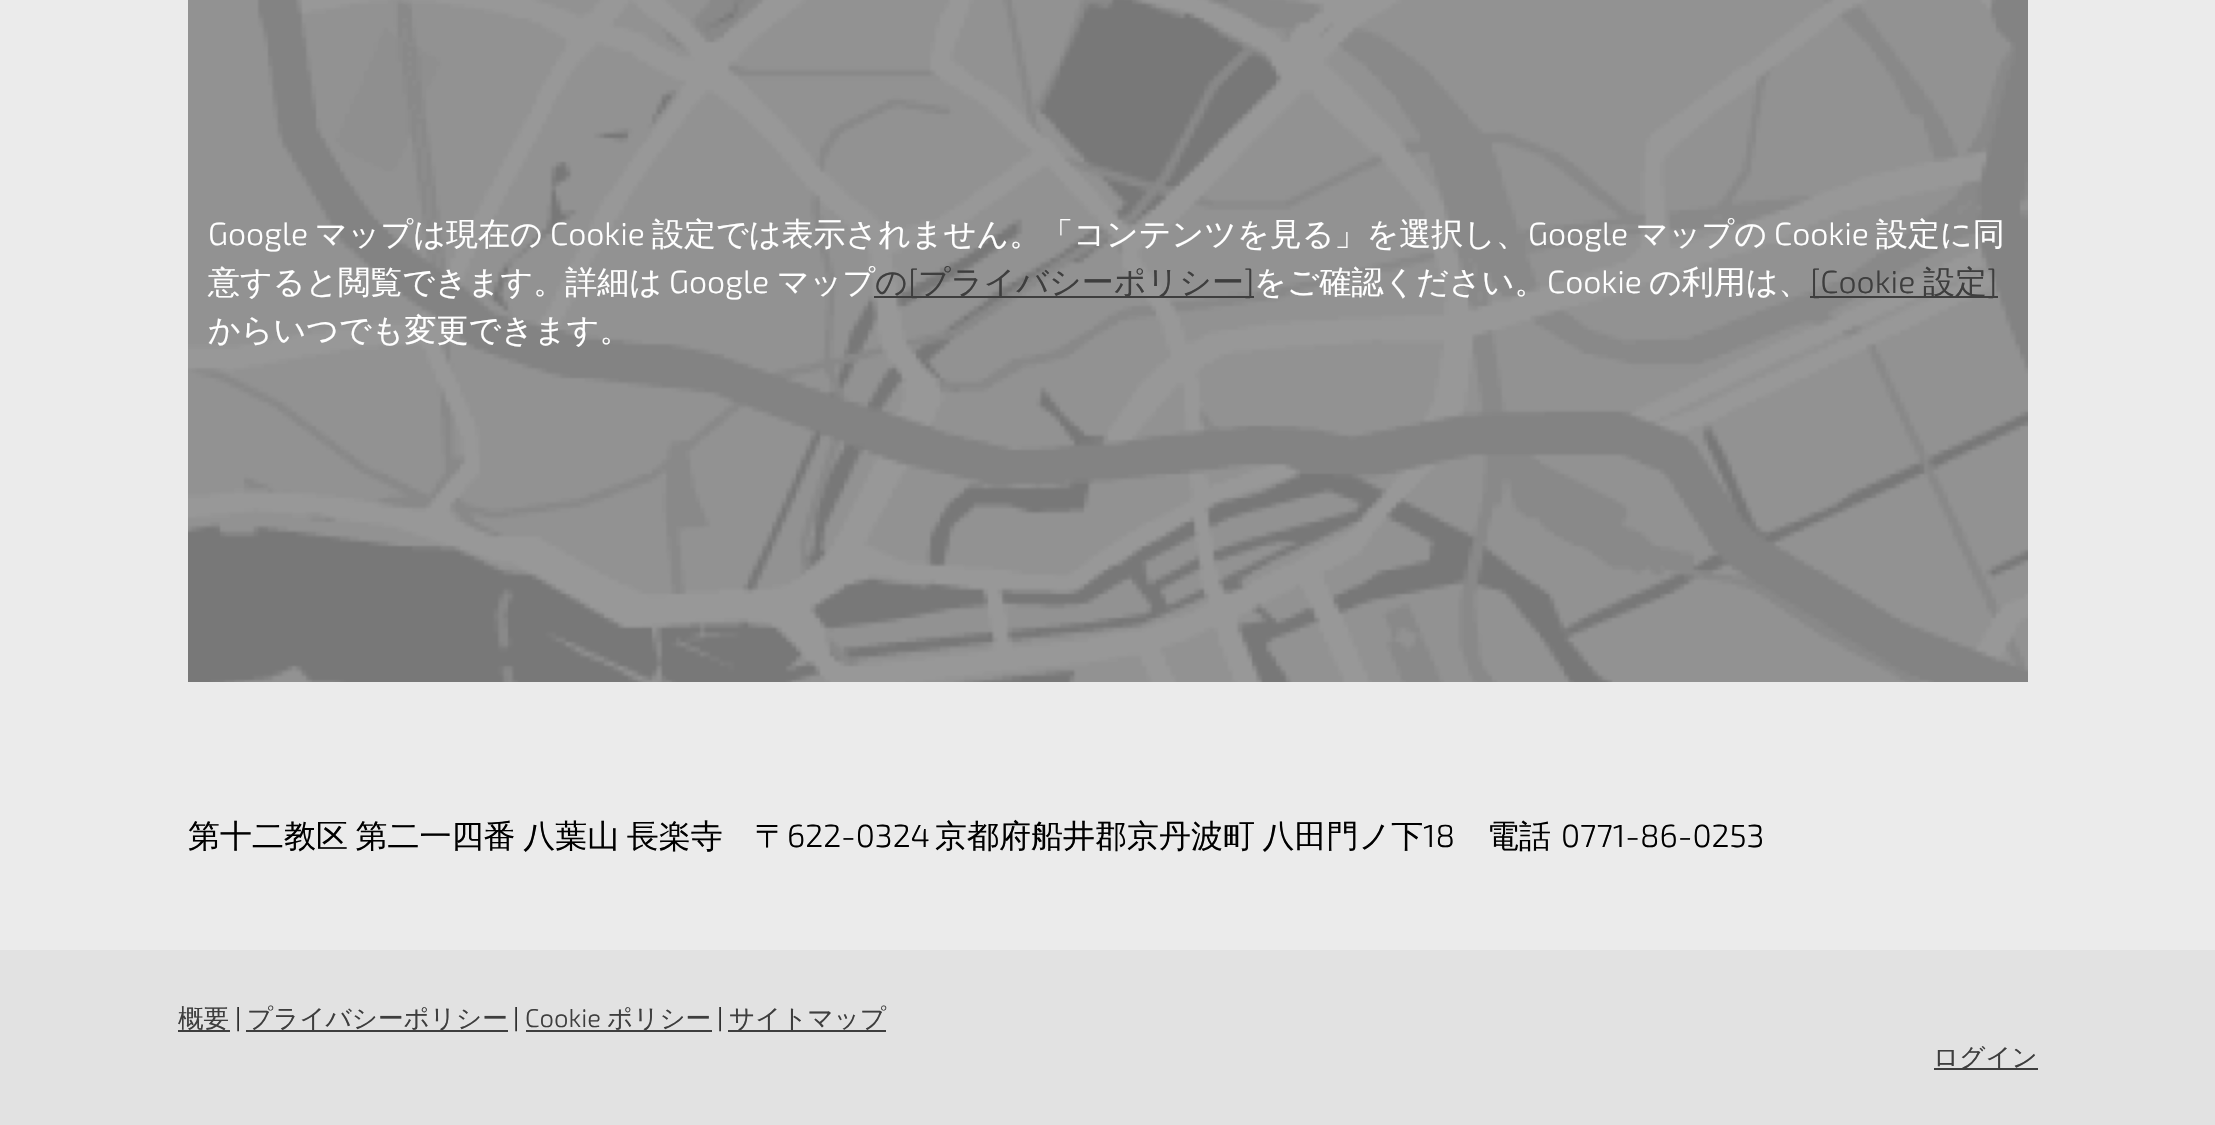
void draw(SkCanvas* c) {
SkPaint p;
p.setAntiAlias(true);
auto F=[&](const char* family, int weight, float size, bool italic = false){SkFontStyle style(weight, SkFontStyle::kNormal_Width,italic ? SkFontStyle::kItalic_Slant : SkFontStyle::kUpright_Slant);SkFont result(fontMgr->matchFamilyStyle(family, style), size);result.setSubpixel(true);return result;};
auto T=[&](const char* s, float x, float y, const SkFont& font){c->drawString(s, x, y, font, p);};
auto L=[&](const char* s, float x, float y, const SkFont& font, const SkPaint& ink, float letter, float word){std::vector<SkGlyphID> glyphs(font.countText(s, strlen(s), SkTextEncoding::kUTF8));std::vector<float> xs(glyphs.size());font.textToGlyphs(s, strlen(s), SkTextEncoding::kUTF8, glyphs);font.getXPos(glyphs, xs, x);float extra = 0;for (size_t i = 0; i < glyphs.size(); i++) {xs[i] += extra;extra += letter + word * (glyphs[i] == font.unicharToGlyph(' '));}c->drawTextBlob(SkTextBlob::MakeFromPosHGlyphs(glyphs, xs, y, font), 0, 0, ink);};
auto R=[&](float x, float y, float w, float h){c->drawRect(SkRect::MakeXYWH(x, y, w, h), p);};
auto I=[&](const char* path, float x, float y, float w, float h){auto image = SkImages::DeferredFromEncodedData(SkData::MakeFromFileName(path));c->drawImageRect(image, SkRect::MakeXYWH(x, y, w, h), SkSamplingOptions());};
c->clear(0xffebebeb);
I("1.png",188,0,1840,682);
auto f1 = F("Exo 2",300,32);
p.setColor(0xffffffff);
T("Google",208,245,f1);
auto f2 = F("WenQuanYi Zen Hei",500,32);
T("マップは現在の",315,245,f2);
T("Cookie",550,245,f1);
T("設定では表示されません。「コンテンツを見る」を選択し、",652,245,f2);
T("Google",1528,245,f1);
T("マップの",1636,245,f2);
T("Cookie",1774,245,f1);
T("設定に同",1876,245,f2);
T("意すると閲覧できます。詳細は",208,293,f2);
T("Google",669,293,f1);
T("マップ",777,293,f2);
p.setColor(0xff3e3e3e);
T("の",875,293,f2);
R(874,296,380,2);
T("[",908,293,f1);
T("プライバシーポリシー",918,293,f2);
T("]",1244,293,f1);
p.setColor(0xffffffff);
T("をご確認ください。",1254,293,f2);
T("Cookie",1547,293,f1);
T("の利用は、",1649,293,f2);
p.setColor(0xff3e3e3e);
R(1810,296,188,2);
T("[Cookie",1810,293,f1);
T("設定",1923,293,f2);
T("]",1987,293,f1);
p.setColor(0xffffffff);
T("からいつでも変更できます。",208,341,f2);
p.setColor(0xff000000);
L("第十二教区 第二一四番 八葉山 長楽寺　〒",188,847,f2,p,0,-2);
T("622-0324",787,847,f1);
L("京都府船井郡京丹波町 八田門ノ下",935,847,f2,p,0,-2);
T("18",1423,847,f1);
T("電話",1487,847,f2);
T("0771-86-0253",1561,847,f1);
p.setColor(0xffe2e2e2);
R(0,950,2215,175);
p.setColor(0xff3e3e3e);
R(178,1030,52,2);
auto f3 = F("WenQuanYi Zen Hei",500,25.6);
T("概要",178,1027,f3);
auto f4 = F("Exo 2",300,25.6);
p.setColor(0xff000000);
T("|",235,1027,f4);
p.setColor(0xff3e3e3e);
R(246,1030,262,2);
T("プライバシーポリシー",247,1027,f3);
p.setColor(0xff000000);
T("|",513,1027,f4);
p.setColor(0xff3e3e3e);
T("Cookie",525,1027,f4);
R(526,1030,186,2);
T("ポリシー",607,1027,f3);
p.setColor(0xff000000);
T("|",717,1027,f4);
p.setColor(0xff3e3e3e);
R(728,1030,158,2);
T("サイトマップ",729,1027,f3);
R(1934,1068,104,2);
T("ログイン",1933,1066,f3);
}
